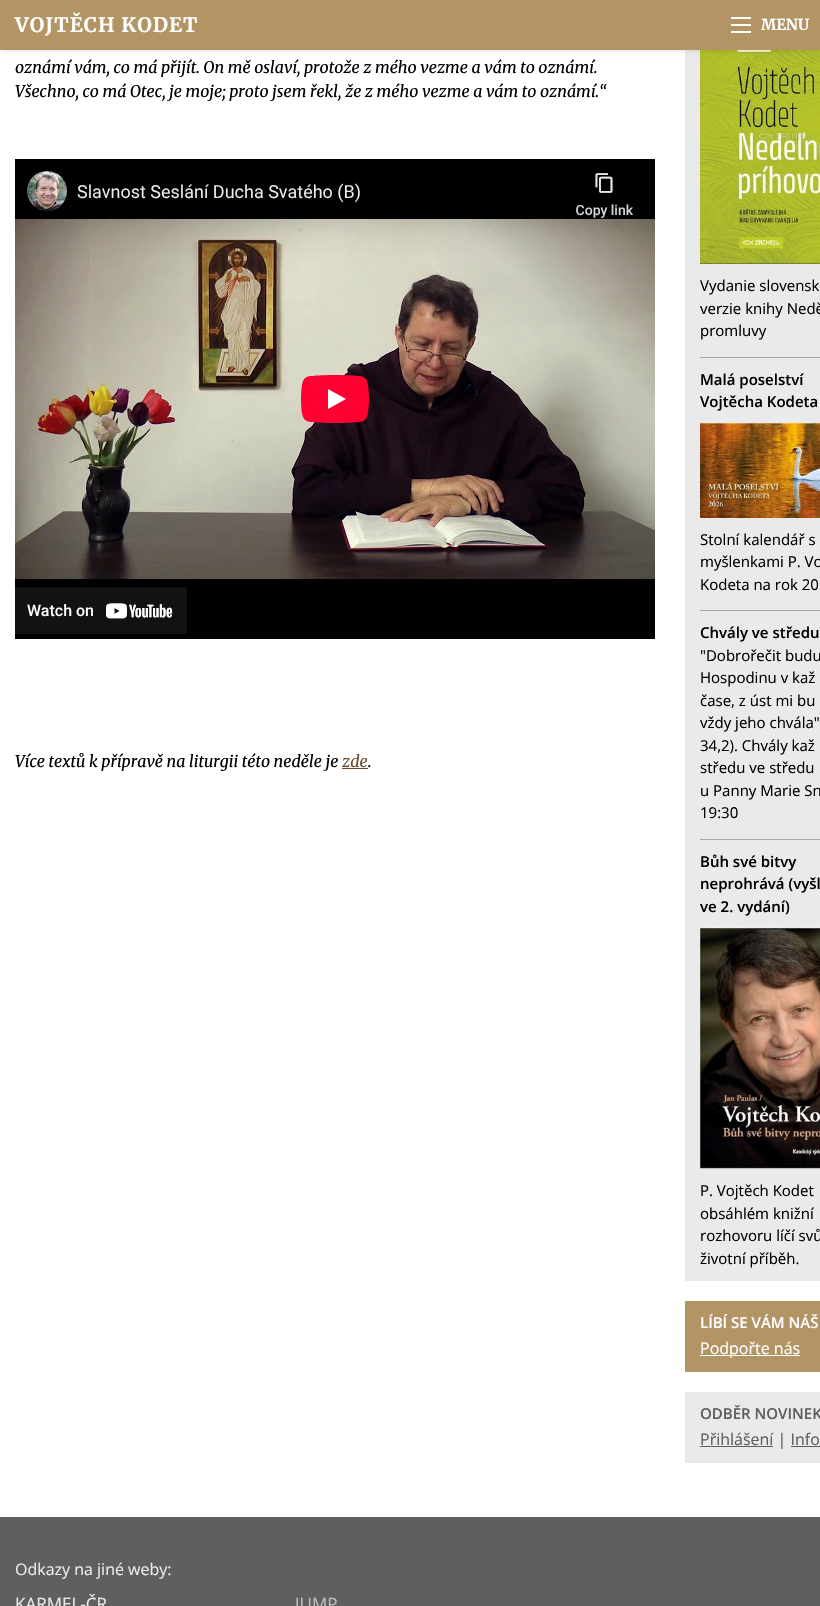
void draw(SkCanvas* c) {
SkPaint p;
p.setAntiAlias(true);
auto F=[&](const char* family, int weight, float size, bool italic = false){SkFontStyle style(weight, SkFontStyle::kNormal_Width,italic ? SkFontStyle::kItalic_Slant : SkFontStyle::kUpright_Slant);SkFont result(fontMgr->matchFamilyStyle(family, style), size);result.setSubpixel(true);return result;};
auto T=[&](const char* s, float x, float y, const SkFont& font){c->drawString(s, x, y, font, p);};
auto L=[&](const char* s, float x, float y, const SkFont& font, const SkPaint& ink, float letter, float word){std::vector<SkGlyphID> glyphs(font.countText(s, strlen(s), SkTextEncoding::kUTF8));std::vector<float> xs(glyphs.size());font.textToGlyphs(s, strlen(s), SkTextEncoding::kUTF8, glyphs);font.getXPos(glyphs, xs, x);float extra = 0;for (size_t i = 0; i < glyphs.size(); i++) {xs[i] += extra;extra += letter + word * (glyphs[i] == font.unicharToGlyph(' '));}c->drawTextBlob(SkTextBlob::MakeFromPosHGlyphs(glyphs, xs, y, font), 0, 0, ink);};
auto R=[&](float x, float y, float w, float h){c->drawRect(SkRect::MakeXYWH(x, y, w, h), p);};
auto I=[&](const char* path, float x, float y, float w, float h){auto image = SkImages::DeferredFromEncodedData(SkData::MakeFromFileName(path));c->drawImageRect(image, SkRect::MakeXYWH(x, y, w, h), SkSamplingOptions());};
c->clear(0xffffffff);
p.setColor(0xffeaeaea);
R(685,50,135,1231);
I("2.png",700,50,120,214);
p.setColor(0x26000000);
p.setMaskFilter(SkMaskFilter::MakeBlur(kNormal_SkBlurStyle, 3));
c->drawRect(SkRect::MakeXYWH(0,0,820,50),p);
p.setMaskFilter(nullptr);
p.setColor(0xffb39565);
R(0,0,820,50);
auto f1 = F("Merriweather",700,20);
p.setColor(0xffffffff);
L("VOJTĚCH KODET",15,32,f1,p,1,0);
R(731,17,20,2);
R(731,24,20,2);
R(731,31,20,2);
auto f2 = F("Merriweather",700,15);
T("MENU",761,30,f2);
auto f3 = F("Merriweather",400,16,true);
p.setColor(0xff000000);
T("oznámí vám, co má přijít. On mě oslaví, protože z mého vezme a vám to oznámí.",15,73,f3);
T("Všechno, co má Otec, je moje; proto jsem řekl, že z mého vezme a vám to oznámí.“",15,97,f3);
I("1.png",15,159,640,480);
T("Více textů k přípravě na liturgii této neděle je",15,767,f3);
p.setColor(0xff6e4b2e);
T("zde",342,767,f3);
p.setColor(0xff000000);
T(".",368,767,f3);
p.setColor(0xff6e4b2e);
R(342,768,26,1);
auto f4 = F("Open Sans",400,15);
p.setColor(0xff000000);
T("Vydanie slovensk",700,291,f4);
T("verzie knihy Nedě",700,314,f4);
T("promluvy",700,336,f4);
p.setColor(0xffa7a7a7);
R(700,357,120,1);
auto f5 = F("Open Sans",600,15);
p.setColor(0xff000000);
T("Malá poselství",700,385,f5);
T("Vojtěcha Kodeta",700,407,f5);
I("3.png",700,423,120,95);
T("Stolní kalendář s",700,545,f4);
T("myšlenkami P. Vo",700,567,f4);
T("Kodeta na rok 20",700,590,f4);
p.setColor(0xffa7a7a7);
R(700,610,120,1);
p.setColor(0xff000000);
T("Chvály ve středu",700,638,f5);
T("\"Dobrořečit budu",700,661,f4);
T("Hospodinu v kaž",700,683,f4);
T("čase, z úst mi bu",700,706,f4);
T("vždy jeho chvála\"",700,728,f4);
T("34,2). Chvály kaž",700,751,f4);
T("středu ve středu",700,773,f4);
T("u Panny Marie Sn",700,796,f4);
T("19:30",700,818,f4);
p.setColor(0xffa7a7a7);
R(700,839,120,1);
p.setColor(0xff000000);
T("Bůh své bitvy",700,867,f5);
T("neprohrává (vyšl",700,889,f5);
T("ve 2. vydání)",700,912,f5);
I("4.png",700,927,120,242);
T("P. Vojtěch Kodet",700,1196,f4);
T("obsáhlém knižní",700,1219,f4);
T("rozhovoru líčí svů",700,1241,f4);
T("životní příběh.",700,1264,f4);
p.setColor(0xffb39565);
R(685,1301,135,71);
p.setColor(0xffffffff);
T("LÍBÍ SE VÁM NÁŠ",700,1328,f5);
R(700,1355,100,1);
auto f6 = F("Open Sans",400,16);
T("Podpořte nás",700,1354,f6);
p.setColor(0xffeaeaea);
R(685,1392,135,71);
p.setColor(0xff5e5e5e);
T("ODBĚR NOVINEK",700,1419,f5);
R(700,1446,73,1);
T("Přihlášení | Info",700,1445,f6);
R(791,1446,29,1);
p.setColor(0xff5f5f5e);
R(0,1517,820,89);
p.setColor(0xffeaeaea);
T("Odkazy na jiné weby:",15,1575,f6);
auto f7 = F("Open Sans",400,17);
T("KARMEL-ČR",15,1610,f7);
p.setColor(0xffbfbfbf);
T("JUMP",295,1610,f7);
}
